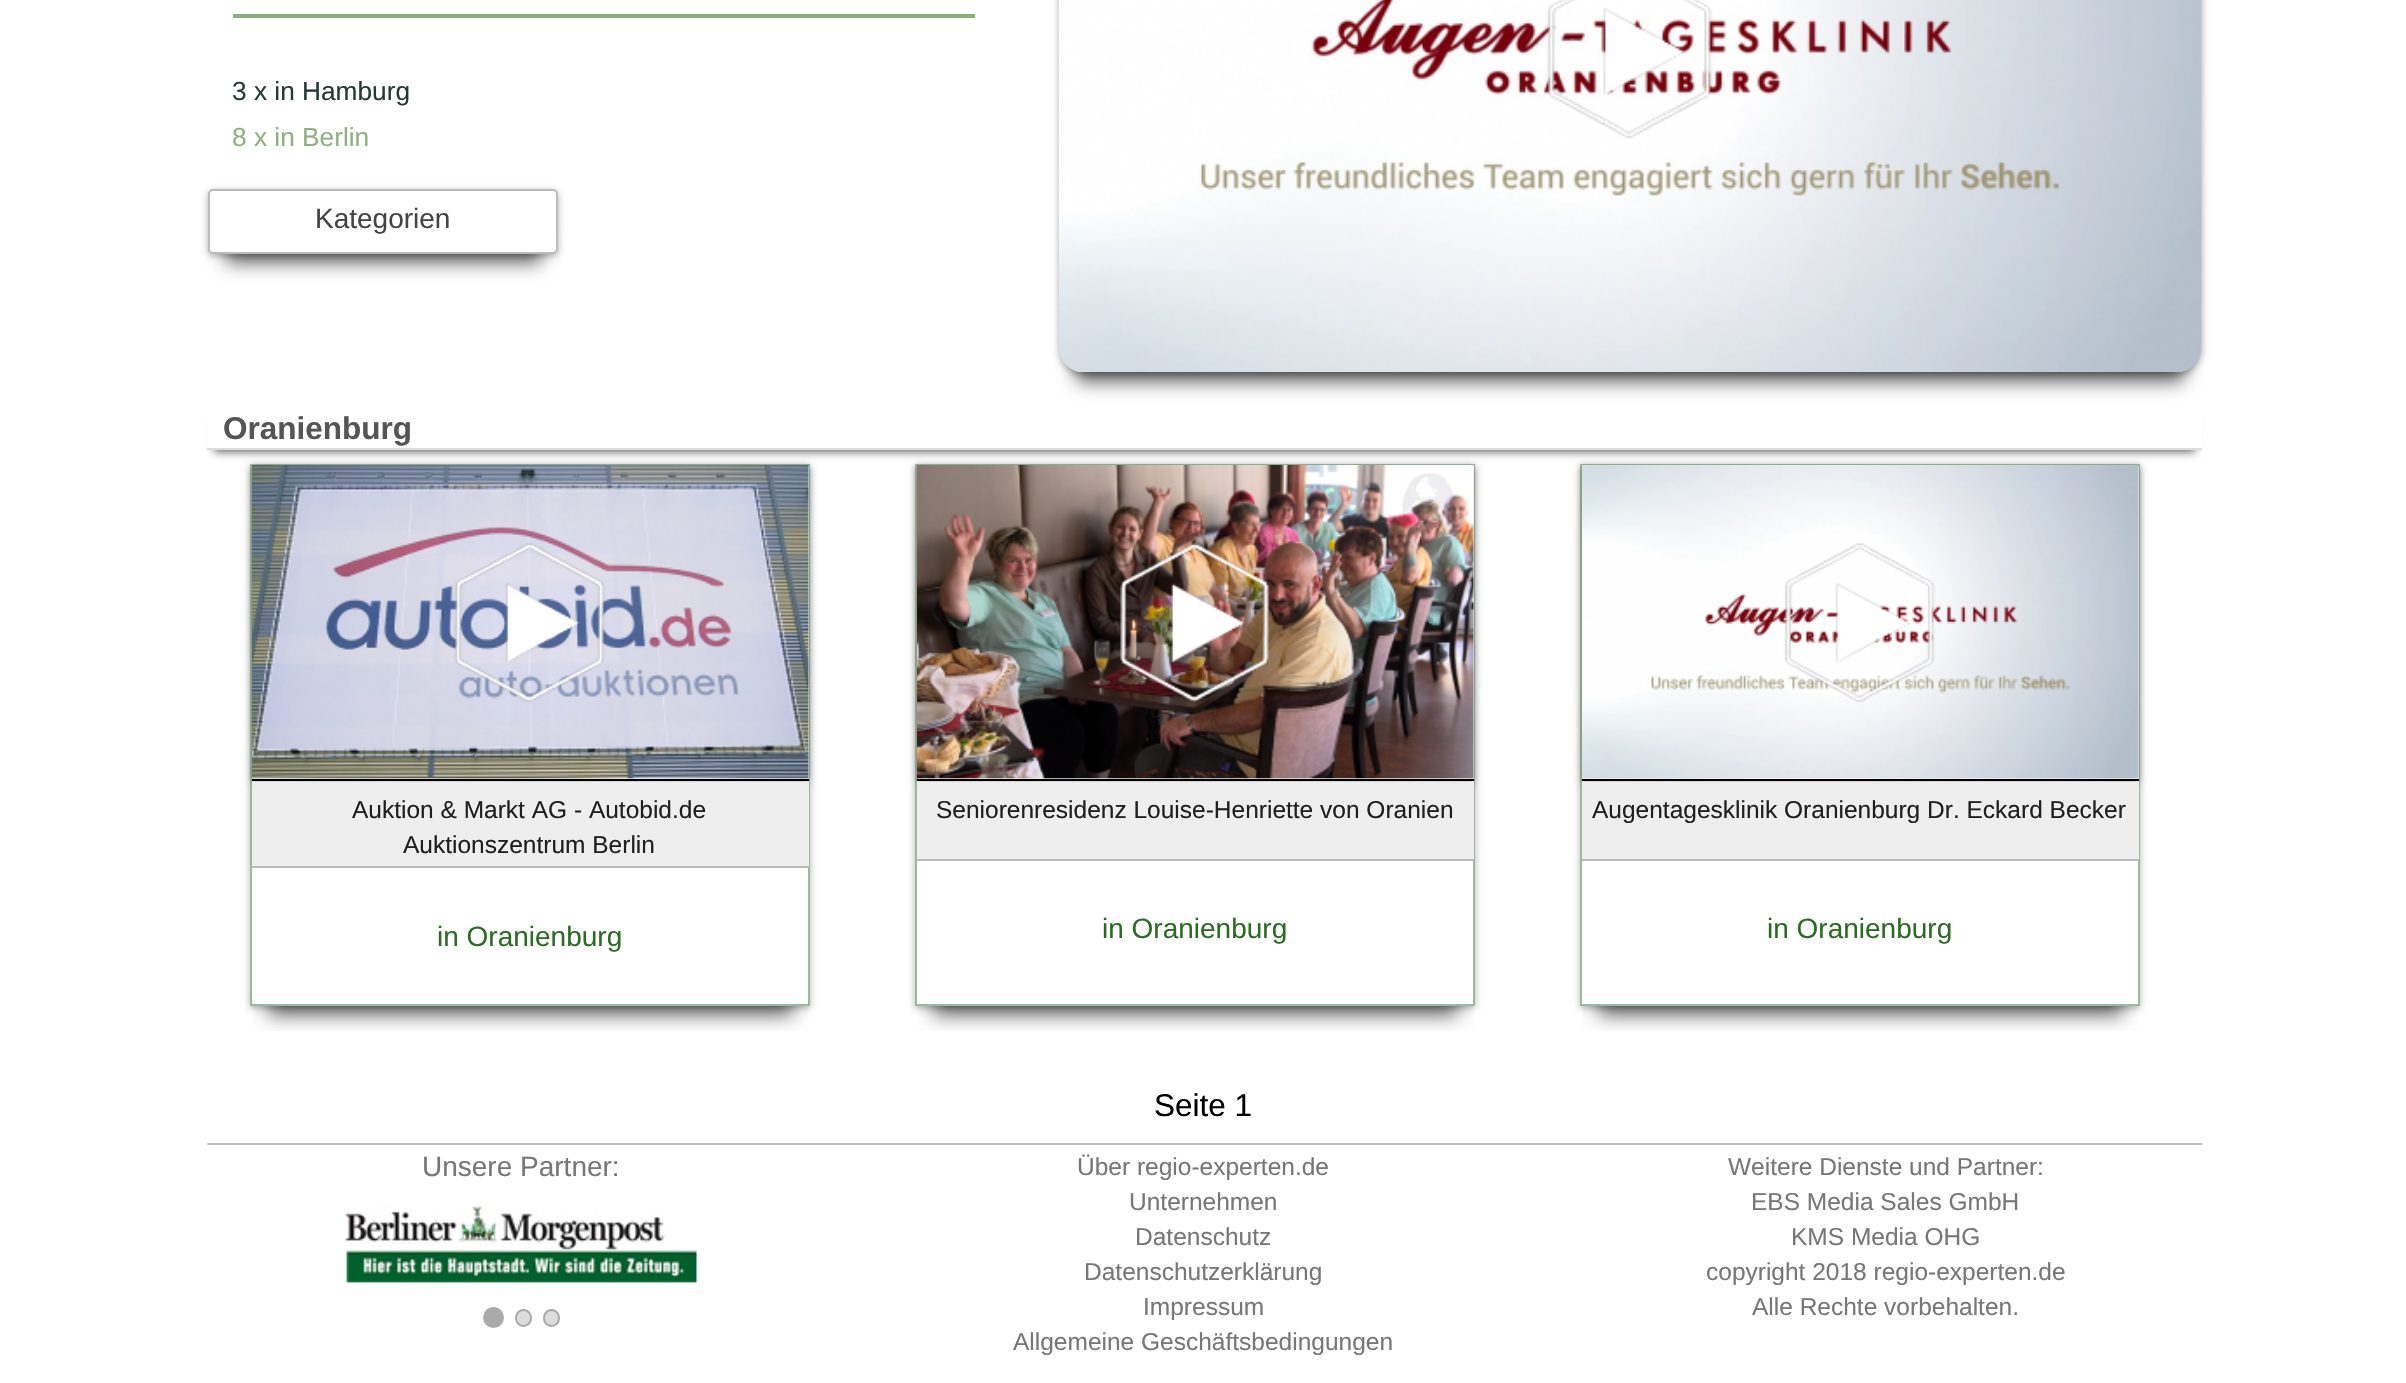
void draw(SkCanvas* c) {
SkPaint p;
p.setAntiAlias(true);
auto F=[&](const char* family, int weight, float size, bool italic = false){SkFontStyle style(weight, SkFontStyle::kNormal_Width,italic ? SkFontStyle::kItalic_Slant : SkFontStyle::kUpright_Slant);SkFont result(fontMgr->matchFamilyStyle(family, style), size);result.setSubpixel(true);return result;};
auto T=[&](const char* s, float x, float y, const SkFont& font){c->drawString(s, x, y, font, p);};
auto R=[&](float x, float y, float w, float h){c->drawRect(SkRect::MakeXYWH(x, y, w, h), p);};
auto Q=[&](float x, float y, float w, float h, float radius){c->drawRoundRect(SkRect::MakeXYWH(x, y, w, h), radius, radius, p);};
auto I=[&](const char* path, float x, float y, float w, float h){auto image = SkImages::DeferredFromEncodedData(SkData::MakeFromFileName(path));c->drawImageRect(image, SkRect::MakeXYWH(x, y, w, h), SkSamplingOptions());};
auto P=[&](const char* data, bool evenOdd = false){SkPath result = *SkParsePath::FromSVGString(data);if (evenOdd) result.setFillType(SkPathFillType::kEvenOdd);return result;};
c->clear(0xffffffff);
p.setColor(0xff8fb17d);
R(233,14,742,4);
auto f1 = F("Liberation Sans",400,26.25);
p.setColor(0xff263a35);
T("3 x in Hamburg",232,100,f1);
p.setColor(0xff8fb17d);
T("8 x in Berlin",232,146,f1);
p.setColor(0x4d000000);
p.setMaskFilter(SkMaskFilter::MakeBlur(kNormal_SkBlurStyle, 3.5));
c->drawRoundRect(SkRect::MakeXYWH(208,191,350,65),5,5,p);
p.setMaskFilter(nullptr);
p.setColor(0x99000000);
p.setMaskFilter(SkMaskFilter::MakeBlur(kNormal_SkBlurStyle, 9));
c->drawRect(SkRect::MakeXYWH(226,233,315,30),p);
p.setMaskFilter(nullptr);
p.setColor(0xffffffff);
c->drawRoundRect(SkRect::MakeXYWH(209,190,348,63),4,4,p);
p.setStroke(true);
p.setStrokeWidth(2);
p.setColor(0xffbbbbbb);
c->drawRoundRect(SkRect::MakeXYWH(209,190,348,63),4,4,p);
auto f2 = F("Liberation Sans",400,28);
p.setStroke(false);
p.setColor(0xff444444);
T("Kategorien",315,228,f2);
p.setColor(0x4d000000);
p.setMaskFilter(SkMaskFilter::MakeBlur(kNormal_SkBlurStyle, 3.5));
c->drawRoundRect(SkRect::MakeXYWH(1059,-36,1143,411),25,25,p);
p.setMaskFilter(nullptr);
p.setColor(0x99000000);
p.setMaskFilter(SkMaskFilter::MakeBlur(kNormal_SkBlurStyle, 9));
c->drawRoundRect(SkRect::MakeXYWH(1076,-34,1108,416),7,7,p);
p.setMaskFilter(nullptr);
I("1.png",1059,0,1143,372);
c->save();
c->clipPath(P("M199 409h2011v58h-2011zm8-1h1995v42h-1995z",true),true);
p.setMaskFilter(SkMaskFilter::MakeBlur(kNormal_SkBlurStyle, 4.5));
c->drawRect(SkRect::MakeXYWH(214,424,1981,28),p);
p.setMaskFilter(nullptr);
c->restore();
p.setColor(0xffdddddd);
R(207,448,1995,2);
auto f3 = F("Liberation Sans",700,31.5);
p.setColor(0xff555555);
T("Oranienburg",223,439,f3);
c->save();
c->clipPath(P("M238 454h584v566h-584zm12 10h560v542h-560z",true),true);
p.setColor(0x4d000000);
p.setMaskFilter(SkMaskFilter::MakeBlur(kNormal_SkBlurStyle, 3.5));
c->drawRect(SkRect::MakeXYWH(250,466,560,542),p);
p.setMaskFilter(nullptr);
c->restore();
c->save();
c->clipRect(SkRect::MakeXYWH(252,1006,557,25));
p.setColor(0x99000000);
p.setMaskFilter(SkMaskFilter::MakeBlur(kNormal_SkBlurStyle, 9));
c->drawRect(SkRect::MakeXYWH(268,508,525,507),p);
p.setMaskFilter(nullptr);
c->restore();
p.setStroke(true);
p.setColor(0xff99bb99);
c->drawRect(SkRect::MakeXYWH(251,465,558,540),p);
p.setStroke(false);
p.setColor(0xffffffff);
R(808,781,1,1);
p.setColor(0x4d000000);
p.setMaskFilter(SkMaskFilter::MakeBlur(kNormal_SkBlurStyle, 3.5));
c->drawRect(SkRect::MakeXYWH(252,467,557,315),p);
p.setMaskFilter(nullptr);
p.setColor(0xffeeeeee);
R(252,466,557,313);
p.setColor(0xff000000);
R(252,779,557,2);
I("2.png",252,465,557,314);
p.setColor(0xffeeeeee);
R(252,782,557,84);
p.setColor(0xffbbbbbb);
R(252,866,557,2);
auto f4 = F("Liberation Sans",400,24.5);
p.setColor(0xff202020);
T("Auktion & Markt AG - Autobid.de",352,818,f4);
T("Auktionszentrum Berlin",403,853,f4);
p.setColor(0xff296d22);
T("in Oranienburg",437,946,f2);
c->save();
c->clipPath(P("M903 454h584v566h-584zm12 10h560v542h-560z",true),true);
p.setColor(0x4d000000);
p.setMaskFilter(SkMaskFilter::MakeBlur(kNormal_SkBlurStyle, 3.5));
c->drawRect(SkRect::MakeXYWH(915,466,560,542),p);
p.setMaskFilter(nullptr);
c->restore();
c->save();
c->clipRect(SkRect::MakeXYWH(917,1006,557,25));
p.setColor(0x99000000);
p.setMaskFilter(SkMaskFilter::MakeBlur(kNormal_SkBlurStyle, 9));
c->drawRect(SkRect::MakeXYWH(933,508,525,507),p);
p.setMaskFilter(nullptr);
c->restore();
p.setStroke(true);
p.setColor(0xff99bb99);
c->drawRect(SkRect::MakeXYWH(916,465,558,540),p);
p.setStroke(false);
p.setColor(0xffffffff);
R(1473,781,1,1);
p.setColor(0x4d000000);
p.setMaskFilter(SkMaskFilter::MakeBlur(kNormal_SkBlurStyle, 3.5));
c->drawRect(SkRect::MakeXYWH(917,467,557,315),p);
p.setMaskFilter(nullptr);
p.setColor(0xffeeeeee);
R(917,466,557,313);
p.setColor(0xff000000);
R(917,779,557,2);
I("3.png",917,465,557,314);
p.setColor(0xffeeeeee);
R(917,782,557,77);
p.setColor(0xffbbbbbb);
R(917,859,557,2);
p.setColor(0xff202020);
T("Seniorenresidenz Louise-Henriette von Oranien",936,818,f4);
p.setColor(0xff296d22);
T("in Oranienburg",1102,938,f2);
c->save();
c->clipPath(P("M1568 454h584v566h-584zm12 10h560v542h-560z",true),true);
p.setColor(0x4d000000);
p.setMaskFilter(SkMaskFilter::MakeBlur(kNormal_SkBlurStyle, 3.5));
c->drawRect(SkRect::MakeXYWH(1580,466,560,542),p);
p.setMaskFilter(nullptr);
c->restore();
c->save();
c->clipRect(SkRect::MakeXYWH(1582,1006,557,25));
p.setColor(0x99000000);
p.setMaskFilter(SkMaskFilter::MakeBlur(kNormal_SkBlurStyle, 9));
c->drawRect(SkRect::MakeXYWH(1598,508,525,507),p);
p.setMaskFilter(nullptr);
c->restore();
p.setStroke(true);
p.setColor(0xff99bb99);
c->drawRect(SkRect::MakeXYWH(1581,465,558,540),p);
p.setStroke(false);
p.setColor(0xffffffff);
R(2138,781,1,1);
p.setColor(0x4d000000);
p.setMaskFilter(SkMaskFilter::MakeBlur(kNormal_SkBlurStyle, 3.5));
c->drawRect(SkRect::MakeXYWH(1582,467,557,315),p);
p.setMaskFilter(nullptr);
p.setColor(0xffeeeeee);
R(1582,466,557,313);
p.setColor(0xff000000);
R(1582,779,557,2);
I("4.png",1582,465,557,314);
p.setColor(0xffeeeeee);
R(1582,782,557,77);
p.setColor(0xffbbbbbb);
R(1582,859,557,2);
p.setColor(0xff202020);
T("Augentagesklinik Oranienburg Dr. Eckard Becker",1592,818,f4);
p.setColor(0xff296d22);
T("in Oranienburg",1767,938,f2);
auto f5 = F("Liberation Sans",400,31.5);
p.setColor(0xff000000);
T("Seite 1",1154,1116,f5);
p.setColor(0xffbbbbbb);
Q(207,1143,1995,2,1);
p.setColor(0xff777777);
T("Unsere Partner:",422,1176,f2);
I("5.png",344,1206,353,78);
p.setColor(0xffaaaaaa);
c->drawCircle(493.5,1317.5,9.5,p);
p.setStroke(true);
c->drawCircle(493.5,1317.5,9.5,p);
p.setStroke(false);
p.setColor(0xffdddddd);
c->drawRoundRect(SkRect::MakeXYWH(516,1310,15,16),7.5,7.5,p);
p.setStroke(true);
p.setColor(0xffaaaaaa);
c->drawRoundRect(SkRect::MakeXYWH(516,1310,15,16),7.5,7.5,p);
p.setStroke(false);
p.setColor(0xffdddddd);
c->drawRoundRect(SkRect::MakeXYWH(544,1310,15,16),7.5,7.5,p);
p.setStroke(true);
p.setColor(0xffaaaaaa);
c->drawRoundRect(SkRect::MakeXYWH(544,1310,15,16),7.5,7.5,p);
p.setStroke(false);
p.setColor(0xff777777);
T("Über regio-experten.de",1077,1175,f4);
T("Unternehmen",1129,1210,f4);
T("Datenschutz",1135,1245,f4);
T("Datenschutzerklärung",1084,1280,f4);
T("Impressum",1143,1315,f4);
T("Allgemeine Geschäftsbedingungen",1013,1350,f4);
T("Weitere Dienste und Partner:",1728,1175,f4);
T("EBS Media Sales GmbH",1751,1210,f4);
T("KMS Media OHG",1791,1245,f4);
T("copyright 2018 regio-experten.de",1706,1280,f4);
T("Alle Rechte vorbehalten.",1752,1315,f4);
}
